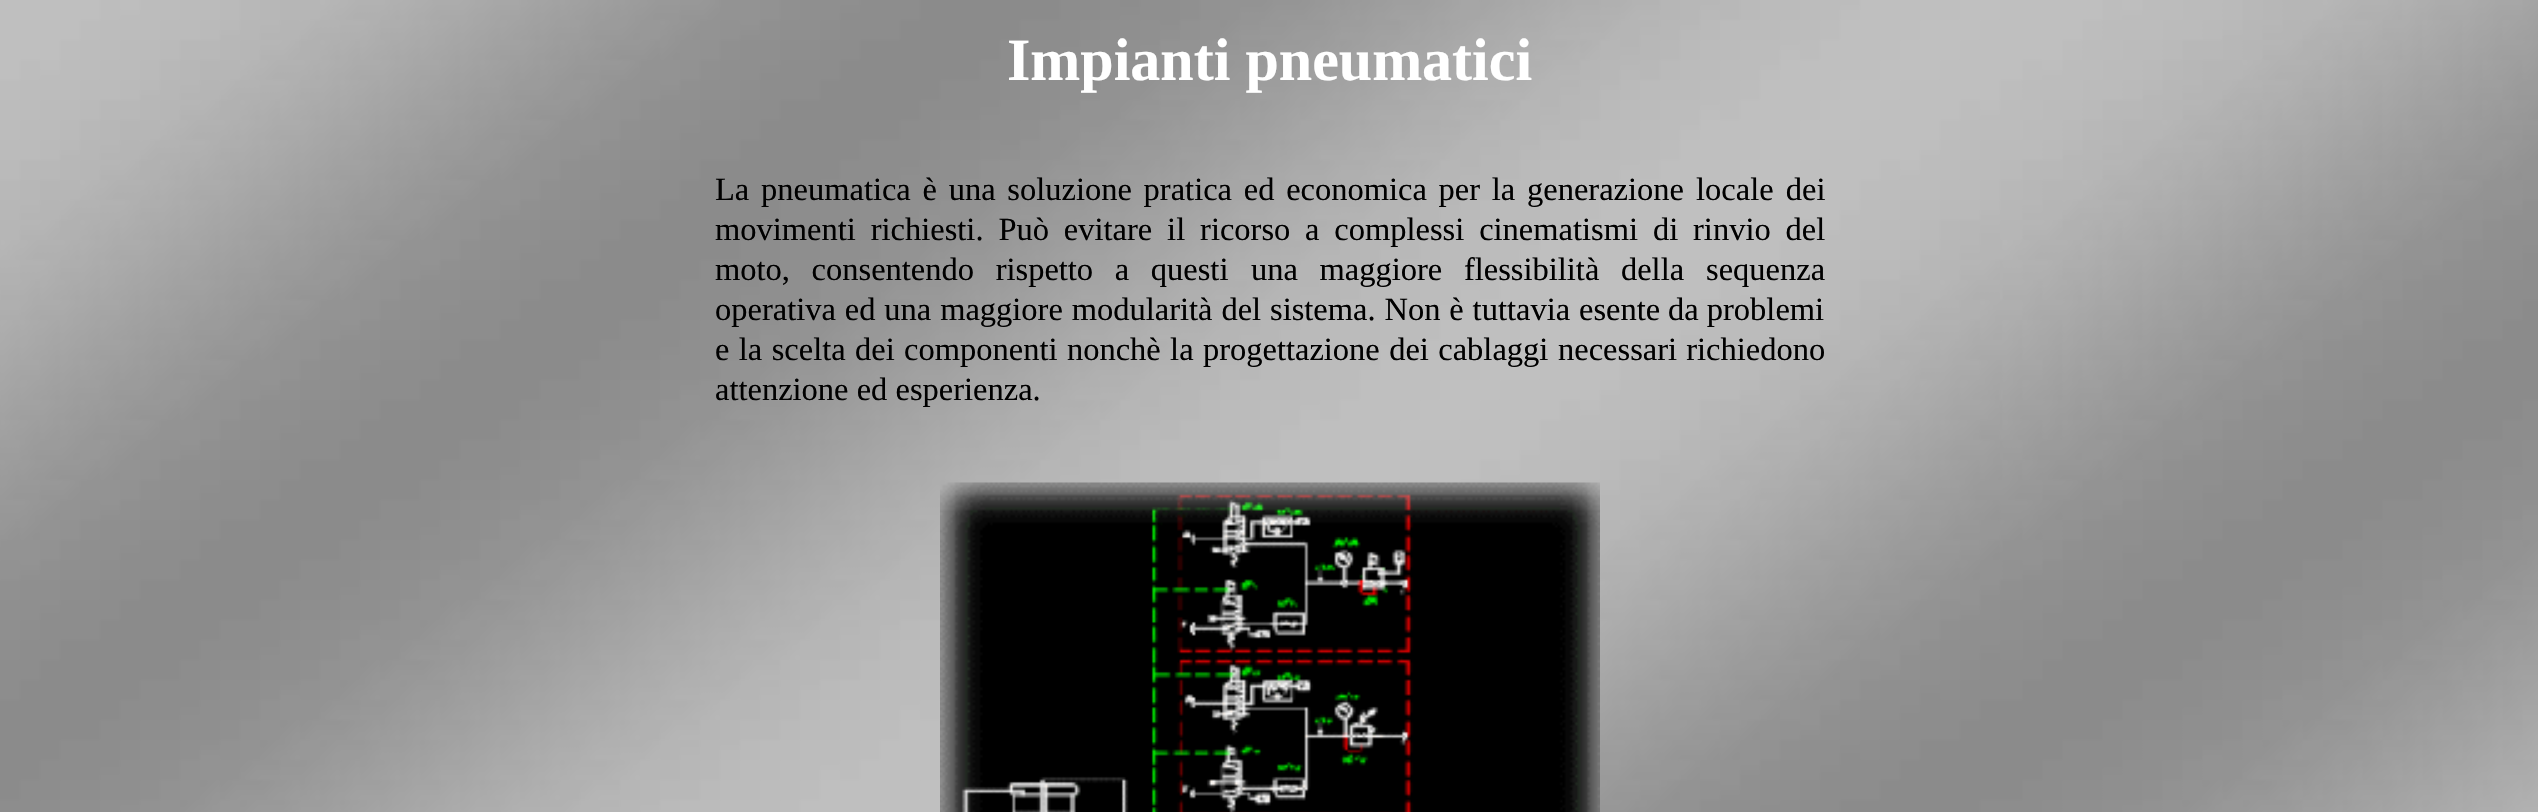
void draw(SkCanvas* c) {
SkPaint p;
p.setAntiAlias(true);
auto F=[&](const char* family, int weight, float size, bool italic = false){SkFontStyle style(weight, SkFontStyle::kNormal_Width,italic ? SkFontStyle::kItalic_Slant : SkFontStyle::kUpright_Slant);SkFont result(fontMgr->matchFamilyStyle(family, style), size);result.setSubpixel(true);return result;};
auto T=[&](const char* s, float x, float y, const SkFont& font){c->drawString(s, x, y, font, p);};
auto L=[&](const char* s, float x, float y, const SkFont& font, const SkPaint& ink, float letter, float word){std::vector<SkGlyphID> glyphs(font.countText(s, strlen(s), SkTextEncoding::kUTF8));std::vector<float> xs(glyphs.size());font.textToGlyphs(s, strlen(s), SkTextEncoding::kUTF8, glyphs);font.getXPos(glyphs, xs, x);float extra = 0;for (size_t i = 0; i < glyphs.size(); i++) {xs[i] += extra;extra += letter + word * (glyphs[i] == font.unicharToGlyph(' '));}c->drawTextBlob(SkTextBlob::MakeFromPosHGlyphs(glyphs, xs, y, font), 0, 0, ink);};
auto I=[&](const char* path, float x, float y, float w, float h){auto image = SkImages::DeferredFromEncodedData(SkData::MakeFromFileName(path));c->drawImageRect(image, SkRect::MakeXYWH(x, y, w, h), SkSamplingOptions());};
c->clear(0xffffffff);
I("1.png",0,0,2538,812);
auto f1 = F("Liberation Serif",700,60);
p.setColor(0xffffffff);
T("Impianti pneumatici",1007,80,f1);
auto f2 = F("Liberation Serif",400,32.5);
p.setColor(0xff000000);
L("La pneumatica è una soluzione pratica ed economica per la generazione",715,200,f2,p,0,3.6);
L("locale dei",1696,200,f2,p,0,4);
L("movimenti richiesti. Può evitare il ricorso",715,240,f2,p,0,6.75);
L("a complessi cinematismi di rinvio del",1305,240,f2,p,0,6.75);
L("moto, consentendo rispetto a questi",715,280,f2,p,0,13.5);
L("una maggiore flessibilità della",1251,280,f2,p,0,13.5);
T("sequenza",1706,280,f2);
L("operativa ed una maggiore modularità del sistema. Non è tuttavia esente",715,320,f2,p,0,.75);
T("da problemi",1668,320,f2);
L("e la scelta dei componenti nonchè la progettazione dei cablaggi",715,360,f2,p,0,1.25);
L("necessari richiedono",1558,360,f2,p,0,1);
T("attenzione ed esperienza.",715,400,f2);
I("2.png",940,482,660,330);
}
